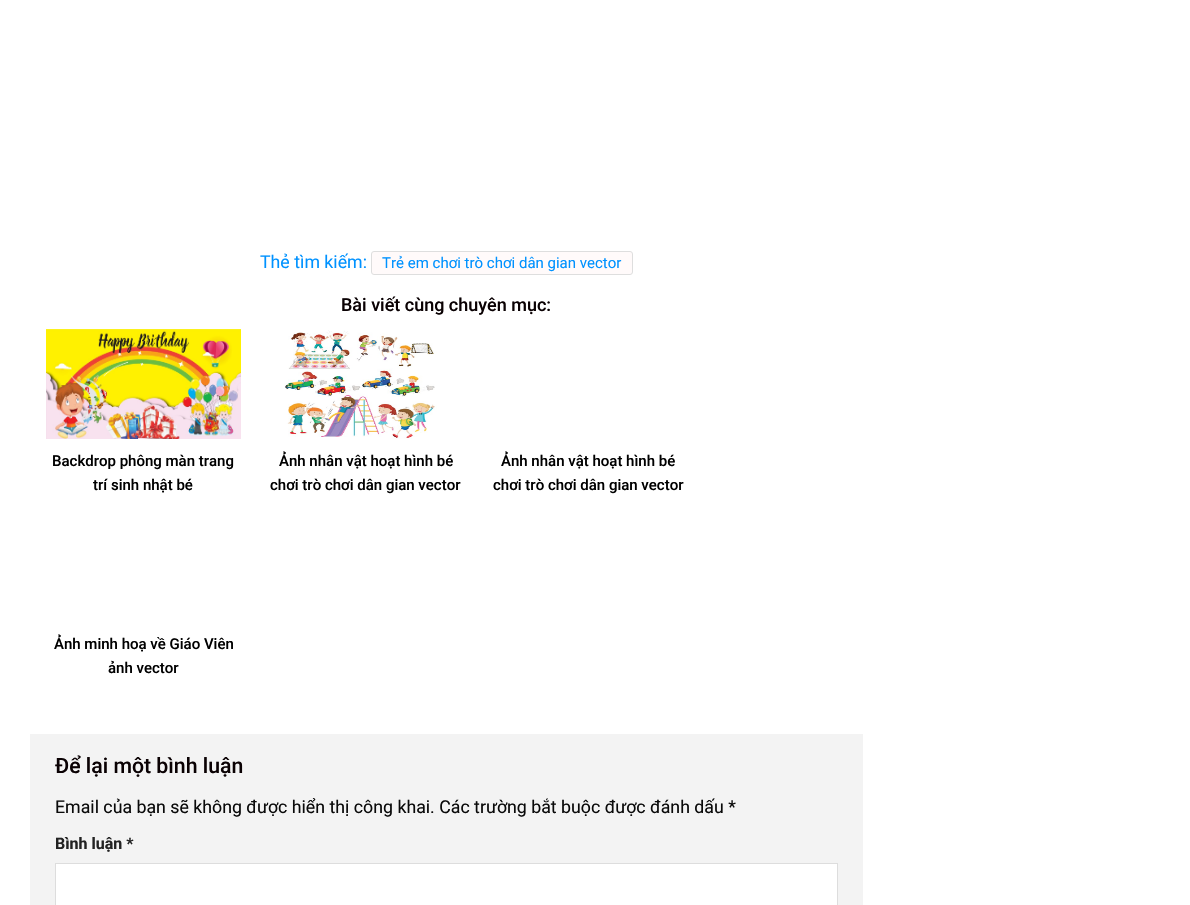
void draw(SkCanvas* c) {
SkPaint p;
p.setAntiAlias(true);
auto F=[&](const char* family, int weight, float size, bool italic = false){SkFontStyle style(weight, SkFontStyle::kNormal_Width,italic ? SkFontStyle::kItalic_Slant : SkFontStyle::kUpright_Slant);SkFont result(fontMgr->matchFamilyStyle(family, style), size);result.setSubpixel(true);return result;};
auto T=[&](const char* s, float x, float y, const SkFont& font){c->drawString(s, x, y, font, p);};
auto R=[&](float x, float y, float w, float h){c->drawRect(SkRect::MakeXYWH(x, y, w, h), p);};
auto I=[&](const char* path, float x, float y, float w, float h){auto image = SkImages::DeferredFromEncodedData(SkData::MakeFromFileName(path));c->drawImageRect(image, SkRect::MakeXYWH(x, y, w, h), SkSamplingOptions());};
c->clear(0xffffffff);
auto f1 = F("Roboto",400,17.75);
p.setColor(0xff0092ff);
T("Thẻ tìm kiếm:",260,268,f1);
p.setColor(0xfffffafa);
c->drawRoundRect(SkRect::MakeXYWH(371.5,251.5,261,23),2.5,2.5,p);
p.setStroke(true);
p.setStrokeWidth(1);
p.setColor(0xffdedede);
c->drawRoundRect(SkRect::MakeXYWH(371.5,251.5,261,23),2.5,2.5,p);
auto f2 = F("Roboto",400,15);
p.setStroke(false);
p.setColor(0xff0092ff);
T("Trẻ em chơi trò chơi dân gian vector",382,268,f2);
auto f3 = F("Roboto",500,18);
p.setColor(0xff0a0103);
T("Bài viết cùng chuyên mục:",341,311,f3);
I("1.png",46,329,195,110);
auto f4 = F("Roboto",500,15);
p.setColor(0xff000000);
T("Backdrop phông màn trang",52,466,f4);
T("trí sinh nhật bé",93,490,f4);
I("2.png",284,330,153,109);
T("Ảnh nhân vật hoạt hình bé",279,466,f4);
T("chơi trò chơi dân gian vector",270,490,f4);
T("Ảnh nhân vật hoạt hình bé",501,466,f4);
T("chơi trò chơi dân gian vector",493,490,f4);
T("Ảnh minh hoạ về Giáo Viên",54,649,f4);
T("ảnh vector",108,673,f4);
p.setColor(0xfff3f3f3);
R(30,734,833,171);
auto f5 = F("Roboto",500,21.25);
p.setColor(0xff0a0103);
T("Để lại một bình luận",55,773,f5);
p.setColor(0xff0a0a0a);
T("Email của bạn sẽ không được hiển thị công khai. Các trường bắt buộc được đánh dấu *",55,813,f1);
auto f6 = F("Roboto",700,16);
p.setColor(0xff222222);
T("Bình luận *",55,849,f6);
p.setColor(0xffffffff);
c->drawRect(SkRect::MakeXYWH(55.5,863.5,782,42),p);
p.setStroke(true);
p.setColor(0xffdddddd);
c->drawRect(SkRect::MakeXYWH(55.5,863.5,782,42),p);
}
